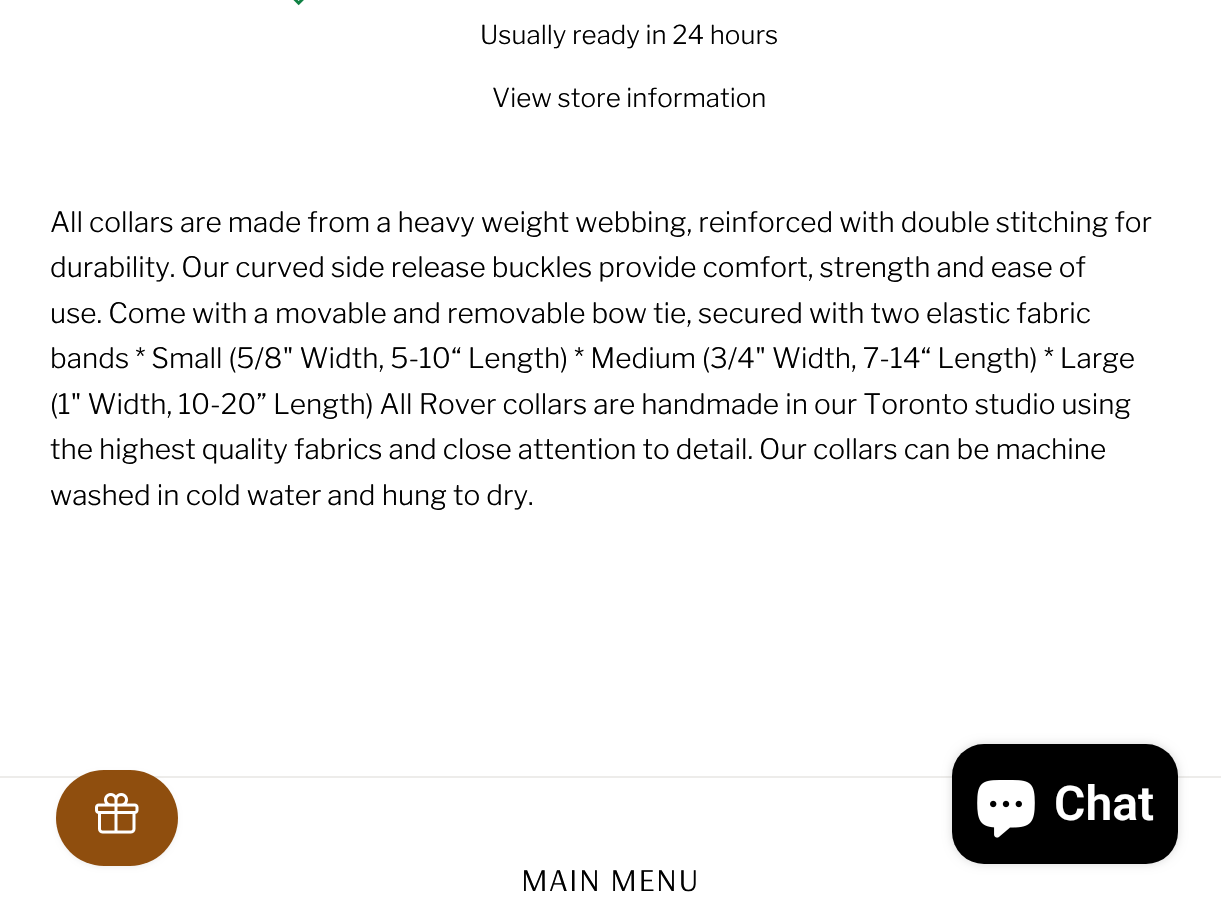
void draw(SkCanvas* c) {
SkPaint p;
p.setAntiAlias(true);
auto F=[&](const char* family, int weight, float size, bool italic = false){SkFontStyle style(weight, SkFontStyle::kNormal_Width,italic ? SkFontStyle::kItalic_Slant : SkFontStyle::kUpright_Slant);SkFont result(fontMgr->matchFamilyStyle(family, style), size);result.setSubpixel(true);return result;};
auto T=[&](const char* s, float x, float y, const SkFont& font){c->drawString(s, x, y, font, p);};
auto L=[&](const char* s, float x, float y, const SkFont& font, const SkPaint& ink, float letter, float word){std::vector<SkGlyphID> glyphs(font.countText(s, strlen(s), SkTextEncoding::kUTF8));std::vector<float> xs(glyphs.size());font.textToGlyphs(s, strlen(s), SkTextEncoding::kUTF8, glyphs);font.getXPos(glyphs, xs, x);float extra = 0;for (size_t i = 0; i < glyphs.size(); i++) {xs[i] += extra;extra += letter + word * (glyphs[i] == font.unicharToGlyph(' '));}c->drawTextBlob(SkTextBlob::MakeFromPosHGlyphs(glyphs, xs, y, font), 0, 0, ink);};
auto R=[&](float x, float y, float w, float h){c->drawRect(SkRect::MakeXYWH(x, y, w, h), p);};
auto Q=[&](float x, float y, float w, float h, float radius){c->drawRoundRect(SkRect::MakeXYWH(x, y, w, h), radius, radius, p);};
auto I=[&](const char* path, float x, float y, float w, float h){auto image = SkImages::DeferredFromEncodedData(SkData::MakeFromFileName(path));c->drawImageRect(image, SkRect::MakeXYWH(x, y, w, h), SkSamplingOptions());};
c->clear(0xffffffff);
I("1.png",293,0,11,6);
auto f1 = F("Libre Franklin",300,26);
p.setColor(0xff000000);
T("Usually ready in 24 hours",480,44,f1);
T("View store information",492,107,f1);
auto f2 = F("Libre Franklin",300,28);
T("All collars are made from a heavy weight webbing, reinforced with double stitching for",50,232,f2);
T("durability. Our curved side release buckles provide comfort, strength and ease of",50,277,f2);
T("use. Come with a movable and removable bow tie, secured with two elastic fabric",50,323,f2);
T("bands * Small (5/8\" Width, 5-10“ Length) * Medium (3/4\" Width, 7-14“ Length) * Large",50,368,f2);
T("(1\" Width, 10-20” Length) All Rover collars are handmade in our Toronto studio using",50,414,f2);
T("the highest quality fabrics and close attention to detail. Our collars can be machine",50,459,f2);
T("washed in cold water and hung to dry.",50,505,f2);
p.setColor(0xffedecea);
R(0,776,1221,2);
p.setColor(0x0d000000);
p.setMaskFilter(SkMaskFilter::MakeBlur(kNormal_SkBlurStyle, 2));
c->drawRoundRect(SkRect::MakeXYWH(56,772,122,96),48,48,p);
p.setMaskFilter(nullptr);
p.setColor(0xff8f4e0e);
Q(56,770,122,96,48);
I("2.png",95,793,44,41);
p.setColor(0x26000000);
p.setMaskFilter(SkMaskFilter::MakeBlur(kNormal_SkBlurStyle, 5));
c->drawRoundRect(SkRect::MakeXYWH(952,744,226,120),32,32,p);
p.setMaskFilter(nullptr);
p.setColor(0xff000000);
Q(952,744,226,120,32);
I("3.png",977,780,58,58);
auto f3 = F("Roboto",600,48);
p.setColor(0xffffffff);
T("Chat",1054,820,f3);
auto f4 = F("Arsenal",400,32);
p.setColor(0xff000000);
L("MAIN MENU",521,891,f4,p,1.5,0);
}
